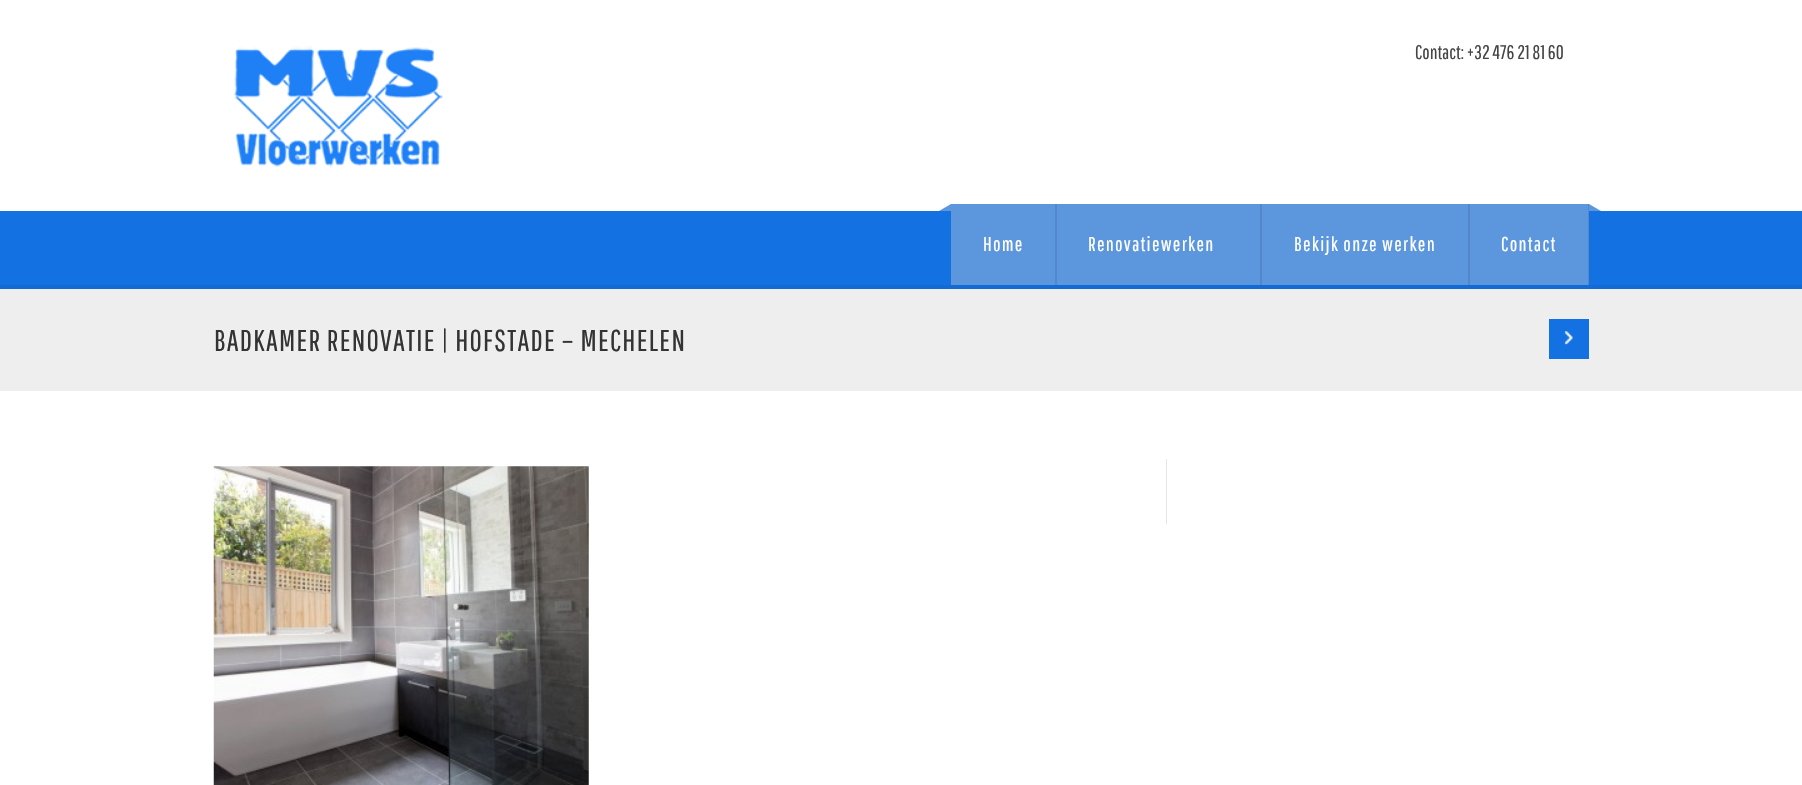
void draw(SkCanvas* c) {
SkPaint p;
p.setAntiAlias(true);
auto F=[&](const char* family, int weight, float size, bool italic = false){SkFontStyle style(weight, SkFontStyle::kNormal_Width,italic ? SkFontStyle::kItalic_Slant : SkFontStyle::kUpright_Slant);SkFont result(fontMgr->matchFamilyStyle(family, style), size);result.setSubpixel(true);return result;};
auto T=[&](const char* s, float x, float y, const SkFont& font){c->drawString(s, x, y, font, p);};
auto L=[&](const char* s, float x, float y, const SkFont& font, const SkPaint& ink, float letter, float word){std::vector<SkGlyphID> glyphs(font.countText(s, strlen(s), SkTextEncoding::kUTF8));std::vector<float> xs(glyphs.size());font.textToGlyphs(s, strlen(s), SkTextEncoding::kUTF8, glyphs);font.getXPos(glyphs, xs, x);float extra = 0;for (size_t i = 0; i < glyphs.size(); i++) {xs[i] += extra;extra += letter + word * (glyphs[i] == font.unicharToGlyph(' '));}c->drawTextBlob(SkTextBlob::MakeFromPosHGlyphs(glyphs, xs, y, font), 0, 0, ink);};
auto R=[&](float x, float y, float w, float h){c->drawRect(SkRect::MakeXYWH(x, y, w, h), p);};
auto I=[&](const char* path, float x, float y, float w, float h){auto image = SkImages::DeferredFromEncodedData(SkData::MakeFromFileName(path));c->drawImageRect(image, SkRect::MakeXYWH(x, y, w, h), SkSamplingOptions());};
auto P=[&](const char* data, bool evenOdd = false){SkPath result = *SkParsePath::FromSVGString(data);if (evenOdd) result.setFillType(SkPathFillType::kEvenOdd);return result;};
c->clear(0xffffffff);
I("1.png",234,46,209,122);
auto f1 = F("Pathway Gothic One",400,19.5);
p.setColor(0xff454545);
T("Contact: +32 476 21 81 60",1415,59,f1);
p.setColor(0xff1471e1);
R(0,211,1802,74);
p.setColor(0xff126bd5);
R(0,285,1802,4);
p.setColor(0xff5c96dd);
c->drawPath(P("M951 204v7h-12z"),p);
c->drawPath(P("M1601 211h-12v-7z"),p);
R(951,204,104,81);
p.setColor(0xff5387c7);
R(1055,204,2,81);
auto f2 = F("Pathway Gothic One",400,20);
p.setColor(0xffffffff);
L("Home",983,251,f2,p,1.25,0);
p.setColor(0xff5c96dd);
R(1057,204,203,81);
p.setColor(0xff5387c7);
R(1260,204,2,81);
p.setColor(0xffffffff);
L("Renovatiewerken",1088,251,f2,p,1.25,0);
p.setColor(0xff5c96dd);
R(1262,204,206,81);
p.setColor(0xff5387c7);
R(1468,204,2,81);
p.setColor(0xffffffff);
L("Bekijk onze werken",1294,251,f2,p,1.25,0);
p.setColor(0xff5c96dd);
R(1470,204,118,81);
p.setColor(0xff5387c7);
R(1588,204,1,81);
p.setColor(0xffffffff);
L("Contact",1501,251,f2,p,1.25,0);
p.setColor(0xffeeeeee);
R(0,289,1802,102);
auto f3 = F("Pathway Gothic One",400,30);
p.setColor(0xff333333);
L("BADKAMER RENOVATIE | HOFSTADE – MECHELEN",214,351,f3,p,1.25,0);
p.setColor(0xff1471e1);
R(1549,319,40,40);
I("2.png",1564,331,9,14);
I("3.png",213,466,376,319);
p.setColor(0xffe5e5e5);
R(1166,459,1,65);
}
